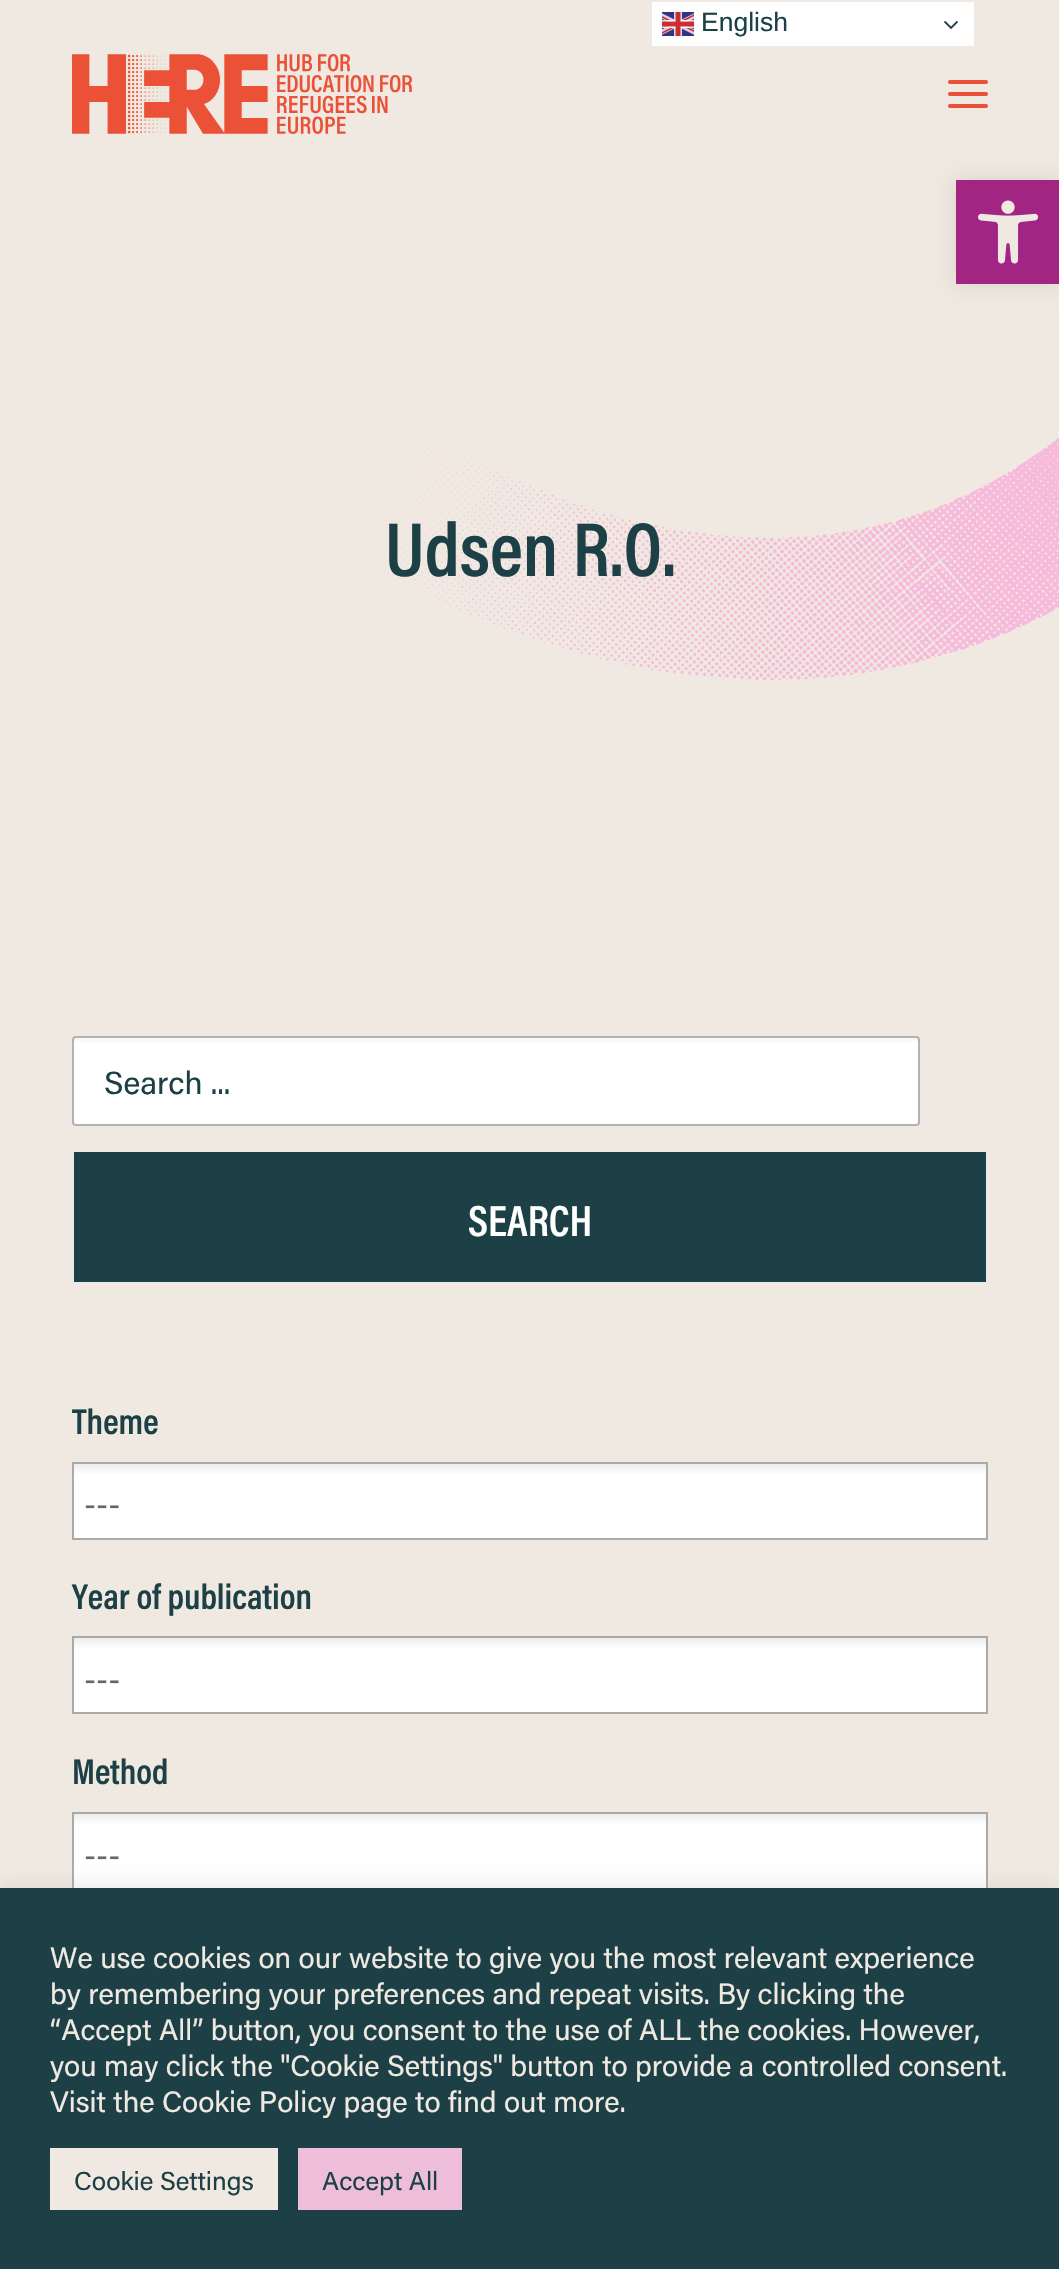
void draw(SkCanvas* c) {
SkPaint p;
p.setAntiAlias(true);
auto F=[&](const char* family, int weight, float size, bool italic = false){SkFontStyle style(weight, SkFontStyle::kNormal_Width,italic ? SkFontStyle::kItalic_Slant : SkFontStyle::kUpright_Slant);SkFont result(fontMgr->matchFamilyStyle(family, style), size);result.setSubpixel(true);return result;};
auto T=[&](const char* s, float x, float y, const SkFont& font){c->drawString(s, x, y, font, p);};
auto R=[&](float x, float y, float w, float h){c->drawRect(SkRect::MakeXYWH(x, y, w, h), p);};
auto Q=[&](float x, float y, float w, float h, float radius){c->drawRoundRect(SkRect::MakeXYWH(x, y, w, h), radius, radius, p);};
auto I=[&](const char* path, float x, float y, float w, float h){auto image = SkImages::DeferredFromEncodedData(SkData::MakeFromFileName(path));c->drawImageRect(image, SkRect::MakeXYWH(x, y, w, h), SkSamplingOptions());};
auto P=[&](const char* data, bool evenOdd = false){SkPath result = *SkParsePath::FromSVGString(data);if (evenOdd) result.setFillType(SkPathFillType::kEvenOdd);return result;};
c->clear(0xffefe9e1);
p.setColor(0xffffffff);
R(652,2,322,44);
I("1.png",662,12,32,24);
auto f1 = F("Liberation Sans",400,26.5);
p.setColor(0xff1c4045);
T("English",701,31,f1);
I("2.png",944,21,14,8);
p.setColor(0x1a000000);
p.setMaskFilter(SkMaskFilter::MakeBlur(kNormal_SkBlurStyle, 10));
c->drawRect(SkRect::MakeXYWH(956,180,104,104),p);
p.setMaskFilter(nullptr);
p.setColor(0xffa32583);
R(956,180,103,104);
I("3.png",978,200,61,64);
I("4.png",72,54,340,80);
p.setColor(0xffeb5138);
Q(948,92,40,4,2);
Q(948,80,40,4,2);
Q(948,104,40,4,2);
I("5.png",337,419,722,262);
auto f2 = F("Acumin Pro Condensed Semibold",600,77);
p.setColor(0xff1c4045);
T("Udsen R.O.",385,576,f2);
p.setColor(0xffffffff);
Q(72,1036,848,90,4);
p.setColor(0xfff9f9f9);
c->drawPath(P("M76 1042h840c1 0 2 1 2 2v-4c0-1-1-2-2-2h-840c-1 0-2 1-2 2v4c0-1 1-2 2-2z"),p);
p.setStroke(true);
p.setStrokeWidth(2);
p.setColor(0x4d000000);
c->drawRoundRect(SkRect::MakeXYWH(73,1037,846,88),3,3,p);
auto f3 = F("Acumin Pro",400,32);
p.setStroke(false);
p.setColor(0xff1c4045);
T("Search ...",104,1094,f3);
c->drawRect(SkRect::MakeXYWH(73,1151,914,132),p);
p.setStroke(true);
p.setColor(0xffeaeaea);
c->drawRect(SkRect::MakeXYWH(73,1151,914,132),p);
auto f4 = F("Acumin Pro Condensed Semibold",600,44);
p.setStroke(false);
p.setColor(0xffffffff);
T("SEARCH",468,1236,f4);
auto f5 = F("Acumin Pro Condensed Semibold",600,36);
p.setColor(0xff1c4045);
T("Theme",72,1434,f5);
{
const SkColor colors[] = {0xffeeeeee,0xffffffff};
const float stops[] = {.01,.15};
const SkPoint ends[] = {{530,1464}, {530,1538}};
p.setShader(SkGradientShader::MakeLinear(ends, colors, stops, 2, SkTileMode::kClamp));
p.setAlpha(255);
}
R(74,1464,912,74);
p.setStroke(true);
p.setShader(nullptr);
p.setColor(0xffaaaaaa);
c->drawRect(SkRect::MakeXYWH(73,1463,914,76),p);
p.setStroke(false);
p.setColor(0xff666666);
T("---",84,1515,f3);
p.setColor(0xff1c4045);
T("Year of publication",72,1609,f5);
{
const SkColor colors[] = {0xffeeeeee,0xffffffff};
const float stops[] = {.01,.15};
const SkPoint ends[] = {{530,1638}, {530,1712}};
p.setShader(SkGradientShader::MakeLinear(ends, colors, stops, 2, SkTileMode::kClamp));
p.setAlpha(255);
}
R(74,1638,912,74);
p.setStroke(true);
p.setShader(nullptr);
p.setColor(0xffaaaaaa);
c->drawRect(SkRect::MakeXYWH(73,1637,914,76),p);
p.setStroke(false);
p.setColor(0xff666666);
T("---",84,1690,f3);
p.setColor(0xff1c4045);
T("Method",72,1784,f5);
{
const SkColor colors[] = {0xffeeeeee,0xffffffff};
const float stops[] = {.01,.15};
const SkPoint ends[] = {{530,1814}, {530,1888}};
p.setShader(SkGradientShader::MakeLinear(ends, colors, stops, 2, SkTileMode::kClamp));
p.setAlpha(255);
}
R(74,1814,912,74);
p.setStroke(true);
p.setShader(nullptr);
p.setColor(0xffaaaaaa);
c->drawRect(SkRect::MakeXYWH(73,1813,914,76),p);
p.setStroke(false);
p.setColor(0xff666666);
T("---",84,1866,f3);
p.setColor(0x4dacabab);
p.setMaskFilter(SkMaskFilter::MakeBlur(kNormal_SkBlurStyle, 10));
c->drawRect(SkRect::MakeXYWH(0,1886,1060,382),p);
p.setMaskFilter(nullptr);
p.setColor(0xff1c4045);
R(0,1888,1059,381);
auto f6 = F("Acumin Pro",400,29.3);
p.setColor(0xffefe9e1);
T("We use cookies on our website to give you the most relevant experience",50,1968,f6);
T("by remembering your preferences and repeat visits. By clicking the",50,2004,f6);
T("“Accept All” button, you consent to the use of ALL the cookies. However,",50,2040,f6);
T("you may click the \"Cookie Settings\" button to provide a controlled consent.",50,2076,f6);
T("Visit the Cookie Policy page to find out more.",50,2112,f6);
R(50,2148,228,62);
auto f7 = F("Acumin Pro",400,26);
p.setColor(0xff1c4045);
T("Cookie Settings",74,2190,f7);
p.setColor(0xffedbdd9);
R(298,2148,164,62);
p.setColor(0xff1c4045);
T("Accept All",322,2190,f7);
}
